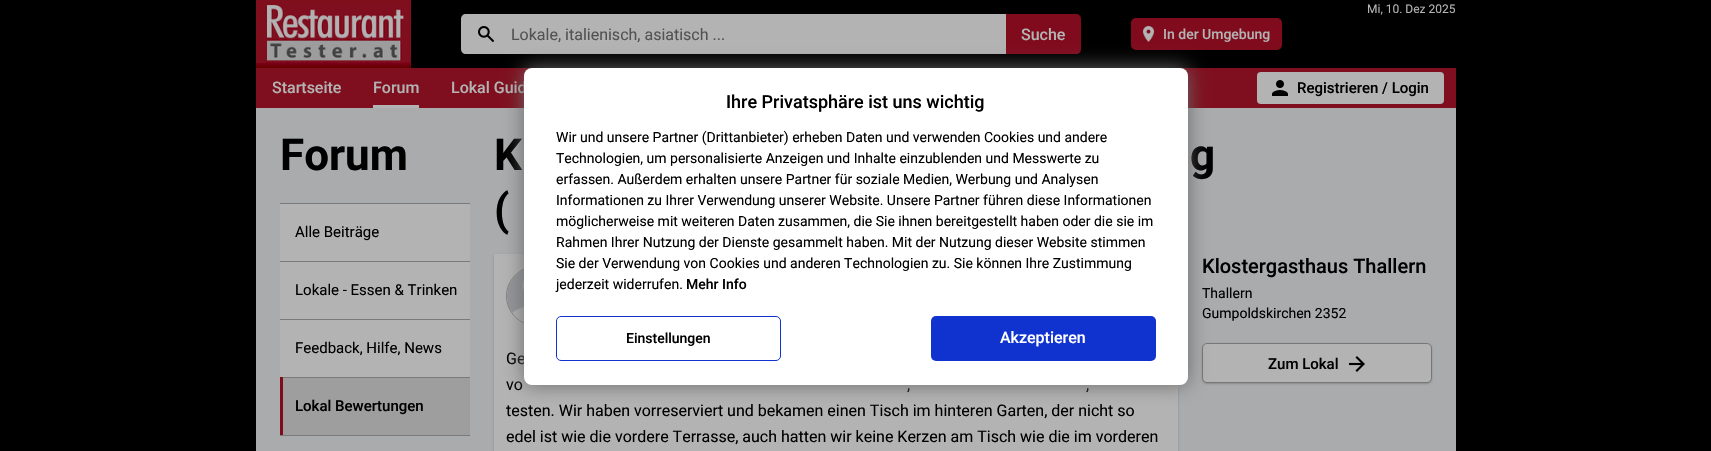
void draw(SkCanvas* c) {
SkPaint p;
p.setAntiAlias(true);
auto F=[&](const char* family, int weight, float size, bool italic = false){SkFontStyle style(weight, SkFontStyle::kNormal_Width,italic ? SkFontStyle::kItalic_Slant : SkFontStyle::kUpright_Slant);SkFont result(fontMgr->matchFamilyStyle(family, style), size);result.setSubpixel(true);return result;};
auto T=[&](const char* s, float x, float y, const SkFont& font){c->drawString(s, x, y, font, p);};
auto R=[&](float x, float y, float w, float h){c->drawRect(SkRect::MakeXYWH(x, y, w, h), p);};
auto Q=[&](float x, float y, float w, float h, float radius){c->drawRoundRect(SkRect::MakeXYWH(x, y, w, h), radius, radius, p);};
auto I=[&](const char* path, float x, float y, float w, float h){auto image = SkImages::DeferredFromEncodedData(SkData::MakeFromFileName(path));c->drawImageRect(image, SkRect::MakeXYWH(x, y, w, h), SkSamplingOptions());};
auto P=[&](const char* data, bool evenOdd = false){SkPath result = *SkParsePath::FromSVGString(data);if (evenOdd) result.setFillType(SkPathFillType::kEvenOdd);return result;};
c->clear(0xff000000);
I("1.png",256,0,155,68);
auto f1 = F("Roboto",400,12);
p.setColor(0xffb3b3b3);
T("Mi, 10. Dez 2025",1367,13,f1);
c->drawPath(P("M466 14h540v40h-540c-3 0-5-2-5-5v-30c0-3 2-5 5-5z"),p);
I("2.png",478,26,16,16);
auto f2 = F("Roboto",400,16);
p.setColor(0xff525252);
T("Lokale, italienisch, asiatisch ...",511,40,f2);
p.setColor(0xff800b1d);
c->drawPath(P("M1006 14h70c3 0 5 2 5 5v30c0 3-2 5-5 5h-70z"),p);
auto f3 = F("Roboto",500,16);
p.setColor(0xffb3b3b3);
T("Suche",1021,40,f3);
p.setColor(0xff800b1d);
Q(1131,18,151,32,5);
I("3.png",1143,26,11,16);
auto f4 = F("Roboto",500,14);
p.setColor(0xffb3b3b3);
T("In der Umgebung",1163,39,f4);
p.setColor(0xff7f0f1e);
R(256,68,1200,40);
p.setColor(0xffb3b3b3);
T("Startseite",272,93,f3);
T("Forum",373,93,f3);
R(373,105,46,3);
T("Lokal Guid",451,93,f3);
Q(1257,72,187,32,4);
I("4.png",1272,80,16,16);
auto f5 = F("Roboto",500,15);
p.setColor(0xff000000);
T("Registrieren / Login",1297,93,f5);
p.setColor(0xffa9abad);
R(256,108,1200,343);
auto f6 = F("Roboto",700,44);
p.setColor(0xff000000);
T("Forum",280,170,f6);
p.setColor(0xffb3b3b3);
R(280,204,190,173);
p.setColor(0xff7a7a7a);
R(280,203,190,1);
R(280,261,190,1);
auto f7 = F("Roboto",400,15);
p.setColor(0xff000000);
T("Alle Beiträge",295,237,f7);
p.setColor(0xff7a7a7a);
R(280,319,190,1);
p.setColor(0xff000000);
T("Lokale - Essen & Trinken",295,295,f7);
p.setColor(0xff7a7a7a);
R(280,377,190,1);
p.setColor(0xff000000);
T("Feedback, Hilfe, News",295,353,f7);
p.setColor(0xff9e9e9e);
R(283,378,187,57);
p.setColor(0xff7a7a7a);
R(280,435,190,1);
p.setColor(0xff800b1d);
R(280,377,3,58);
p.setColor(0xff000000);
T("Lokal Bewertungen",295,411,f5);
T("K",494,170,f6);
T("g",1190,170,f6);
T("(",494,225,f6);
auto f8 = F("Roboto",500,20);
T("Klostergasthaus Thallern",1202,273,f8);
auto f9 = F("Roboto",400,14);
T("Thallern",1202,298,f9);
T("Gumpoldskirchen 2352",1202,318,f9);
p.setColor(0x33000000);
p.setMaskFilter(SkMaskFilter::MakeBlur(kNormal_SkBlurStyle, 1));
c->drawRoundRect(SkRect::MakeXYWH(1202,344,230,40),5,5,p);
p.setMaskFilter(nullptr);
p.setColor(0xffb3b3b3);
c->drawRoundRect(SkRect::MakeXYWH(1202.5,343.5,229,39),4.5,4.5,p);
p.setStroke(true);
p.setStrokeWidth(1);
p.setColor(0xff777777);
c->drawRoundRect(SkRect::MakeXYWH(1202.5,343.5,229,39),4.5,4.5,p);
p.setStroke(false);
p.setColor(0xff000000);
T("Zum Lokal",1268,369,f5);
I("5.png",1349,356,16,16);
p.setColor(0x33000000);
p.setMaskFilter(SkMaskFilter::MakeBlur(kNormal_SkBlurStyle, 1));
c->drawRect(SkRect::MakeXYWH(494,255,684,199),p);
p.setMaskFilter(nullptr);
p.setColor(0xffb3b3b3);
R(494,254,684,197);
p.setStroke(true);
p.setColor(0xff7d7d7d);
c->drawCircle(536,296,29.5,p);
I("6.png",507,269,17,54);
p.setStroke(false);
p.setColor(0xff000000);
T("Ge",506,364,f2);
T("vo",506,390,f2);
T(",",907,390,f2);
T(",",1086,390,f2);
T("testen. Wir haben vorreserviert und bekamen einen Tisch im hinteren Garten, der nicht so",506,416,f2);
T("edel ist wie die vordere Terrasse, auch hatten wir keine Kerzen am Tisch wie die im vorderen",506,442,f2);
p.setColor(0xff696969);
p.setMaskFilter(SkMaskFilter::MakeBlur(kNormal_SkBlurStyle, 10));
c->drawRoundRect(SkRect::MakeXYWH(524,68,664,317),8,8,p);
p.setMaskFilter(nullptr);
p.setColor(0xffffffff);
Q(524,68,664,317,8);
auto f10 = F("Roboto",500,18);
p.setColor(0xff000000);
T("Ihre Privatsphäre ist uns wichtig",726,108,f10);
T("Wir und unsere Partner (Drittanbieter) erheben Daten und verwenden Cookies und andere",556,142,f9);
T("Technologien, um personalisierte Anzeigen und Inhalte einzublenden und Messwerte zu",556,163,f9);
T("erfassen. Außerdem erhalten unsere Partner für soziale Medien, Werbung und Analysen",556,184,f9);
T("Informationen zu Ihrer Verwendung unserer Website. Unsere Partner führen diese Informationen",556,205,f9);
T("möglicherweise mit weiteren Daten zusammen, die Sie ihnen bereitgestellt haben oder die sie im",556,226,f9);
T("Rahmen Ihrer Nutzung der Dienste gesammelt haben. Mit der Nutzung dieser Website stimmen",556,247,f9);
T("Sie der Verwendung von Cookies und anderen Technologien zu. Sie können Ihre Zustimmung",556,268,f9);
T("jederzeit widerrufen.",556,289,f9);
T("Mehr Info",686,289,f4);
p.setStroke(true);
p.setColor(0xff1032cf);
c->drawRoundRect(SkRect::MakeXYWH(556.5,316.5,224,44),4.5,4.5,p);
p.setStroke(false);
p.setColor(0xff000000);
T("Einstellungen",626,343,f4);
p.setColor(0xff1032cf);
Q(931,316,225,45,5);
p.setColor(0xffffffff);
T("Akzeptieren",1000,343,f3);
}
